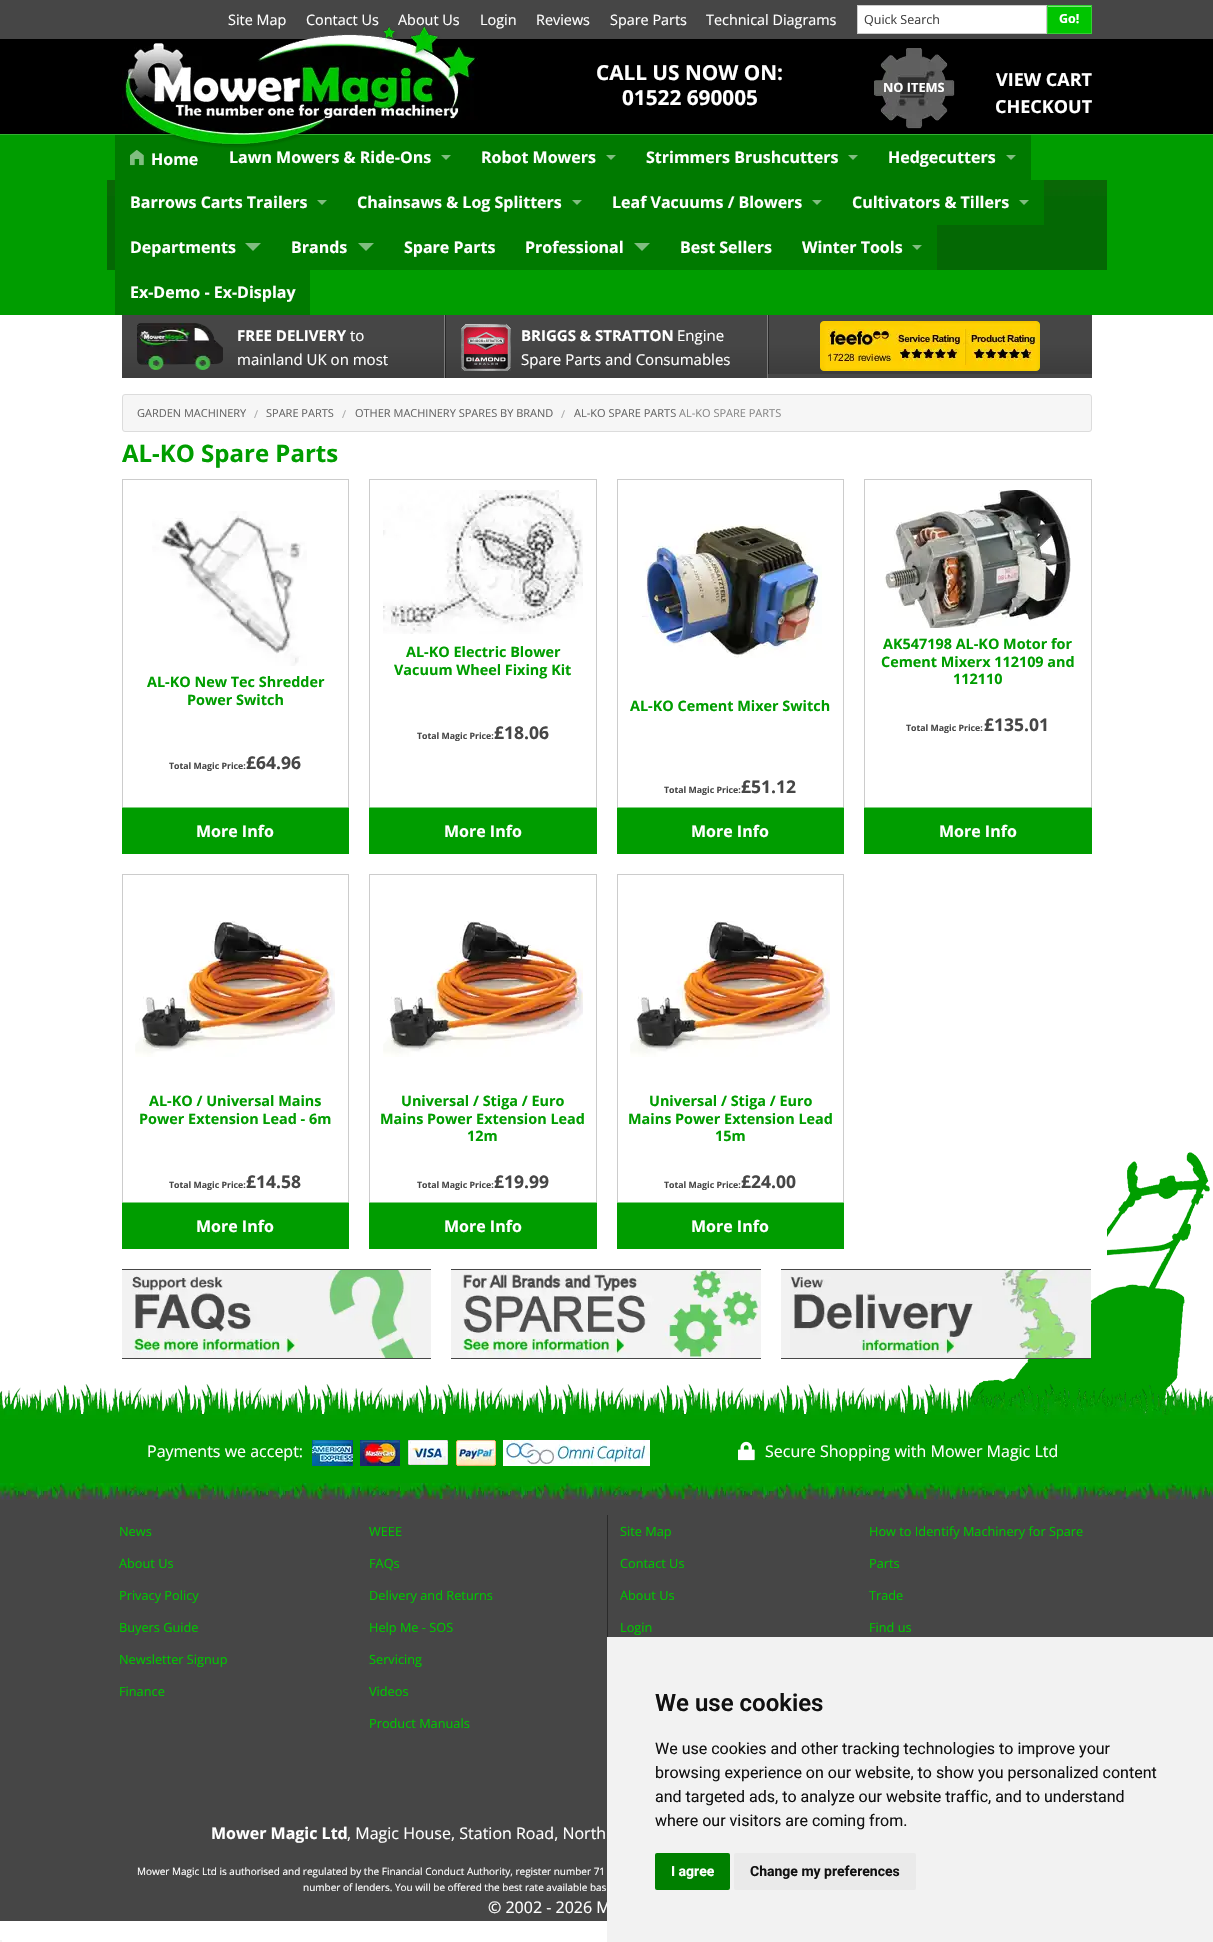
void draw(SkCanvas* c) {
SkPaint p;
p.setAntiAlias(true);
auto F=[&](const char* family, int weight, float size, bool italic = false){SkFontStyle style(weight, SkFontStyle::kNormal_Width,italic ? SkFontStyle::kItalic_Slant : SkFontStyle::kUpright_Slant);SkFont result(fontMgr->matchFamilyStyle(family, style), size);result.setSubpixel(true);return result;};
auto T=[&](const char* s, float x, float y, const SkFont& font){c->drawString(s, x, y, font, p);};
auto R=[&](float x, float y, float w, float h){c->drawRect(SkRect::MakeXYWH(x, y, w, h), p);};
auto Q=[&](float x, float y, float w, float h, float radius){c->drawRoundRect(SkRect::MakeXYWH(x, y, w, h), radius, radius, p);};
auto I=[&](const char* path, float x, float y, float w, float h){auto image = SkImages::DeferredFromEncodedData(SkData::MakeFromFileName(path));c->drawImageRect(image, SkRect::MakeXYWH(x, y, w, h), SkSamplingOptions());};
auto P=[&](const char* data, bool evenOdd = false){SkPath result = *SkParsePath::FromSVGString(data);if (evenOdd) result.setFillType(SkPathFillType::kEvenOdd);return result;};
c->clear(0xffffffff);
p.setColor(0xff464646);
R(0,0,1213,39);
auto f1 = F("Open Sans",400,14.4);
p.setColor(0xffffffff);
T("Site Map",228,25,f1);
T("Contact Us",306,25,f1);
T("About Us",398,25,f1);
T("Login",480,25,f1);
T("Reviews",536,25,f1);
T("Spare Parts",610,25,f1);
T("Technical Diagrams",706,25,f1);
c->drawRect(SkRect::MakeXYWH(857.5,5.5,189,28),p);
p.setStroke(true);
p.setStrokeWidth(1);
p.setColor(0xffcccccc);
c->drawRect(SkRect::MakeXYWH(857.5,5.5,189,28),p);
auto f2 = F("Open Sans",400,12.5);
p.setStroke(false);
p.setColor(0xff404040);
T("Quick Search",864,24,f2);
p.setColor(0xff00c500);
R(1048,7,43,26);
p.setColor(0xff80e280);
R(1048,6,43,1);
p.setStroke(true);
p.setColor(0xff33d133);
c->drawRect(SkRect::MakeXYWH(1047.5,5.5,44,28),p);
auto f3 = F("Open Sans",700,12.5);
p.setStroke(false);
p.setColor(0xffffffff);
T("Go!",1059,23,f3);
p.setColor(0xff000000);
R(0,39,1213,95);
p.setColor(0xff009d00);
R(0,135,1213,180);
p.setColor(0xff33b133);
R(0,134,1213,1);
p.setColor(0xff007a00);
R(115,135,916,45);
I("1.png",122,26,356,122);
auto f4 = F("Open Sans",700,20.75);
p.setColor(0xffffffff);
T("CALL US NOW ON:",596,80,f4);
T("01522 690005",622,105,f4);
I("2.png",874,48,81,81);
auto f5 = F("Open Sans",700,12.75);
T("NO ITEMS",883,92,f5);
auto f6 = F("Open Sans",700,18);
T("VIEW CART",996,86,f6);
T("CHECKOUT",995,113,f6);
I("3.png",107,180,1000,90);
I("4.png",130,150,14,16);
auto f7 = F("Open Sans",700,16);
T("Home",151,165,f7);
T("Lawn Mowers & Ride-Ons",229,163,f7);
p.setColor(0xff80bd80);
c->drawPath(P("M441 155h10l-5 5z"),p);
p.setColor(0xffffffff);
T("Robot Mowers",481,163,f7);
p.setColor(0xff80bd80);
c->drawPath(P("M606 155h10l-5 5z"),p);
p.setColor(0xffffffff);
T("Strimmers Brushcutters",646,163,f7);
p.setColor(0xff80bd80);
c->drawPath(P("M848 155h10l-5 5z"),p);
p.setColor(0xffffffff);
T("Hedgecutters",888,163,f7);
p.setColor(0xff80bd80);
c->drawPath(P("M1006 155h10l-5 5z"),p);
p.setColor(0xff007a00);
R(115,180,929,45);
p.setColor(0xffffffff);
T("Barrows Carts Trailers",130,208,f7);
p.setColor(0xff80bd80);
c->drawPath(P("M317 200h10l-5 5z"),p);
p.setColor(0xffffffff);
T("Chainsaws & Log Splitters",357,208,f7);
p.setColor(0xff80bd80);
c->drawPath(P("M572 200h10l-5 5z"),p);
p.setColor(0xffffffff);
T("Leaf Vacuums / Blowers",612,208,f7);
p.setColor(0xff80bd80);
c->drawPath(P("M812 200h10l-5 5z"),p);
p.setColor(0xffffffff);
T("Cultivators & Tillers",852,208,f7);
p.setColor(0xff80bd80);
c->drawPath(P("M1019 200h10l-5 5z"),p);
p.setColor(0xff007a00);
R(115,225,822,45);
p.setColor(0xffffffff);
T("Departments",130,253,f7);
p.setColor(0xff80bd80);
c->drawPath(P("M245 243h16l-8 8z"),p);
p.setColor(0xffffffff);
T("Brands",291,253,f7);
p.setColor(0xff80bd80);
c->drawPath(P("M358 243h16l-8 8z"),p);
p.setColor(0xffffffff);
T("Spare Parts",404,253,f7);
T("Professional",525,253,f7);
p.setColor(0xff80bd80);
c->drawPath(P("M634 243h16l-8 8z"),p);
p.setColor(0xffffffff);
T("Best Sellers",680,253,f7);
T("Winter Tools",802,253,f7);
p.setColor(0xff80bd80);
c->drawPath(P("M912 245h10l-5 5z"),p);
p.setColor(0xff007a00);
R(115,270,195,45);
p.setColor(0xffffffff);
T("Ex-Demo - Ex-Display",130,298,f7);
I("15.png",963,1152,250,262);
I("5.png",0,1384,1213,35);
p.setColor(0xff464646);
R(768,374,324,4);
{
const SkColor colors[] = {0xff3c3c3c,0xff464646};
const float stops[] = {0,.52};
const SkPoint ends[] = {{283,378}, {283,315}};
p.setShader(SkGradientShader::MakeLinear(ends, colors, stops, 2, SkTileMode::kClamp));
p.setAlpha(255);
}
R(122,315,322,63);
{
const SkColor colors[] = {0xff777777,0xff7e7e7e};
const float stops[] = {0,.52};
const SkPoint ends[] = {{283,378}, {283,315}};
p.setShader(SkGradientShader::MakeLinear(ends, colors, stops, 2, SkTileMode::kClamp));
p.setAlpha(255);
}
R(444,315,1,63);
I("6.png",137,323,86,47);
auto f8 = F("Open Sans",700,15);
p.setShader(nullptr);
p.setColor(0xffffffff);
T("FREE DELIVERY",237,341,f8);
auto f9 = F("Open Sans",400,15);
T("to",350,341,f9);
T("mainland UK on most",237,365,f9);
{
const SkColor colors[] = {0xff3c3c3c,0xff464646};
const float stops[] = {0,.52};
const SkPoint ends[] = {{607,378}, {607,315}};
p.setShader(SkGradientShader::MakeLinear(ends, colors, stops, 2, SkTileMode::kClamp));
p.setAlpha(255);
}
R(446,315,321,63);
{
const SkColor colors[] = {0xff242424,0xff2a2a2a};
const float stops[] = {0,.52};
const SkPoint ends[] = {{607,378}, {607,315}};
p.setShader(SkGradientShader::MakeLinear(ends, colors, stops, 2, SkTileMode::kClamp));
p.setAlpha(255);
}
R(445,315,1,63);
{
const SkColor colors[] = {0xff777777,0xff7e7e7e};
const float stops[] = {0,.52};
const SkPoint ends[] = {{607,378}, {607,315}};
p.setShader(SkGradientShader::MakeLinear(ends, colors, stops, 2, SkTileMode::kClamp));
p.setAlpha(255);
}
R(767,315,1,63);
I("7.png",461,323,50,48);
p.setShader(nullptr);
p.setColor(0xffffffff);
T("BRIGGS & STRATTON",521,341,f8);
T("Engine",677,341,f9);
T("Spare Parts and Consumables",521,365,f9);
{
const SkColor colors[] = {0xff3c3c3c,0xff464646};
const float stops[] = {0,.52};
const SkPoint ends[] = {{931,374}, {931,315}};
p.setShader(SkGradientShader::MakeLinear(ends, colors, stops, 2, SkTileMode::kClamp));
p.setAlpha(255);
}
R(769,315,323,59);
{
const SkColor colors[] = {0xff242424,0xff2a2a2a};
const float stops[] = {0,.52};
const SkPoint ends[] = {{931,374}, {931,315}};
p.setShader(SkGradientShader::MakeLinear(ends, colors, stops, 2, SkTileMode::kClamp));
p.setAlpha(255);
}
R(768,315,1,59);
I("8.png",820,321,220,50);
p.setShader(nullptr);
p.setColor(0xffffffff);
R(1078,1229,29,40);
p.setColor(0xfff6f6f6);
c->drawRoundRect(SkRect::MakeXYWH(122.5,394.5,969,37),2.5,2.5,p);
p.setStroke(true);
p.setColor(0xffdcdcdc);
c->drawRoundRect(SkRect::MakeXYWH(122.5,394.5,969,37),2.5,2.5,p);
auto f10 = F("Open Sans",400,11);
p.setStroke(false);
p.setColor(0xff666666);
T("GARDEN MACHINERY",137,417,f10);
p.setColor(0xffaaaaaa);
T("/",254,418,f10);
p.setColor(0xff666666);
T("SPARE PARTS",266,417,f10);
p.setColor(0xffaaaaaa);
T("/",342,418,f10);
p.setColor(0xff666666);
T("OTHER MACHINERY SPARES BY BRAND",355,417,f10);
p.setColor(0xffaaaaaa);
T("/",561,418,f10);
p.setColor(0xff666666);
T("AL-KO SPARE PARTS",574,417,f10);
p.setColor(0xff888888);
T("AL-KO SPARE PARTS",679,417,f10);
auto f11 = F("Open Sans",700,24);
p.setColor(0xff009d00);
T("AL-KO Spare Parts",122,462,f11);
p.setColor(0xffcccccc);
R(122,479,227,1);
R(348,479,1,328);
R(122,479,1,328);
I("9.png",152,511,155,155);
auto f12 = F("Open Sans",700,14.4);
p.setColor(0xff009d00);
T("AL-KO New Tec Shredder",147,687,f12);
T("Power Switch",187,705,f12);
auto f13 = F("Open Sans",700,8.75);
p.setColor(0xff464646);
T("Total Magic Price:",169,769,f13);
auto f14 = F("Open Sans",700,17.5);
T("£64.96",246,769,f14);
p.setColor(0xff009d00);
R(122,808,227,46);
p.setColor(0xff80ce80);
R(122,807,227,1);
p.setColor(0xffffffff);
T("More Info",196,837,f7);
p.setColor(0xffcccccc);
R(369,479,228,1);
R(596,479,1,328);
R(369,479,1,328);
I("10.png",383,490,200,144);
p.setColor(0xff009d00);
T("AL-KO Electric Blower",406,657,f12);
T("Vacuum Wheel Fixing Kit",394,675,f12);
p.setColor(0xff464646);
T("Total Magic Price:",417,739,f13);
T("£18.06",494,739,f14);
p.setColor(0xff009d00);
R(369,808,228,46);
p.setColor(0xff80ce80);
R(369,807,228,1);
p.setColor(0xffffffff);
T("More Info",444,837,f7);
p.setColor(0xffcccccc);
R(617,479,227,1);
R(843,479,1,328);
R(617,479,1,328);
I("11.png",642,524,180,134);
p.setColor(0xff009d00);
T("AL-KO Cement Mixer Switch",630,711,f12);
p.setColor(0xff464646);
T("Total Magic Price:",664,793,f13);
T("£51.12",741,793,f14);
p.setColor(0xff009d00);
R(617,808,227,46);
p.setColor(0xff80ce80);
R(617,807,227,1);
p.setColor(0xffffffff);
T("More Info",691,837,f7);
p.setColor(0xffcccccc);
R(864,479,228,1);
R(1091,479,1,328);
R(864,479,1,328);
I("12.png",884,490,187,138);
p.setColor(0xff009d00);
T("AK547198 AL-KO Motor for",883,649,f12);
T("Cement Mixerx 112109 and",881,667,f12);
T("112110",953,684,f12);
p.setColor(0xff464646);
T("Total Magic Price:",906,731,f13);
T("£135.01",984,731,f14);
p.setColor(0xff009d00);
R(864,808,228,46);
p.setColor(0xff80ce80);
R(864,807,228,1);
p.setColor(0xffffffff);
T("More Info",939,837,f7);
p.setColor(0xffcccccc);
R(122,874,227,1);
R(348,874,1,328);
R(122,874,1,328);
I("13.png",135,921,200,136);
p.setColor(0xff009d00);
T("AL-KO / Universal Mains",149,1106,f12);
T("Power Extension Lead - 6m",139,1124,f12);
p.setColor(0xff464646);
T("Total Magic Price:",169,1188,f13);
T("£14.58",246,1188,f14);
p.setColor(0xff009d00);
R(122,1203,227,46);
p.setColor(0xff80ce80);
R(122,1202,227,1);
p.setColor(0xffffffff);
T("More Info",196,1232,f7);
p.setColor(0xffcccccc);
R(369,874,228,1);
R(596,874,1,328);
R(369,874,1,328);
I("14.png",383,921,200,136);
p.setColor(0xff009d00);
T("Universal / Stiga / Euro",401,1106,f12);
T("Mains Power Extension Lead",380,1124,f12);
T("12m",467,1141,f12);
p.setColor(0xff464646);
T("Total Magic Price:",417,1188,f13);
T("£19.99",494,1188,f14);
p.setColor(0xff009d00);
R(369,1203,228,46);
p.setColor(0xff80ce80);
R(369,1202,228,1);
p.setColor(0xffffffff);
T("More Info",444,1232,f7);
p.setColor(0xffcccccc);
R(617,874,227,1);
R(843,874,1,328);
R(617,874,1,328);
I("14.png",630,921,200,136);
p.setColor(0xff009d00);
T("Universal / Stiga / Euro",649,1106,f12);
T("Mains Power Extension Lead",628,1124,f12);
T("15m",715,1141,f12);
p.setColor(0xff464646);
T("Total Magic Price:",664,1188,f13);
T("£24.00",741,1188,f14);
p.setColor(0xff009d00);
R(617,1203,227,46);
p.setColor(0xff80ce80);
R(617,1202,227,1);
p.setColor(0xffffffff);
T("More Info",691,1232,f7);
p.setColor(0xfff2f2f2);
R(122,1270,309,88);
p.setColor(0xff464646);
R(122,1269,309,1);
R(122,1358,309,1);
I("16.png",131,1270,286,88);
p.setColor(0xfff2f2f2);
R(451,1270,12,88);
p.setColor(0xff464646);
R(451,1269,310,1);
R(451,1358,310,1);
I("17.png",463,1270,298,88);
p.setColor(0xfff2f2f2);
R(781,1270,9,88);
p.setColor(0xff464646);
R(781,1269,310,1);
R(781,1358,310,1);
I("18.png",790,1270,301,88);
p.setColor(0xff009d00);
R(0,1419,1213,64);
auto f15 = F("Open Sans",400,16);
p.setColor(0xffffffff);
T("Payments we accept:",147,1457,f15);
I("19.png",312,1440,338,26);
I("20.png",738,1441,17,20);
T("Secure Shopping with Mower Magic Ltd",765,1457,f15);
p.setColor(0xff464646);
R(0,1500,1213,421);
I("21.png",0,1483,1213,17);
auto f16 = F("Open Sans",400,12.75);
p.setColor(0xff00c500);
T("News",119,1536,f16);
T("About Us",119,1568,f16);
T("Privacy Policy",119,1600,f16);
T("Buyers Guide",119,1632,f16);
T("Newsletter Signup",119,1664,f16);
T("Finance",119,1696,f16);
T("WEEE",369,1536,f16);
T("FAQs",369,1568,f16);
T("Delivery and Returns",369,1600,f16);
T("Help Me - SOS",369,1632,f16);
T("Servicing",369,1664,f16);
T("Videos",369,1696,f16);
T("Product Manuals",369,1728,f16);
T("How to Identify Machinery for Spare",869,1536,f16);
T("Parts",869,1568,f16);
T("Trade",869,1600,f16);
T("Find us",869,1632,f16);
p.setColor(0xff2a2a2a);
R(607,1515,1,122);
p.setColor(0xff00c500);
T("Site Map",620,1536,f16);
T("Contact Us",620,1568,f16);
T("About Us",620,1600,f16);
T("Login",620,1632,f16);
p.setColor(0xffffffff);
T("Mower Magic Ltd",211,1839,f7);
T(", Magic House, Station Road, North",347,1839,f15);
auto f17 = F("Open Sans",400,10);
T("Mower Magic Ltd is authorised and regulated by the Financial Conduct Authority, register number 71",137,1875,f17);
T("number of lenders. You will be offered the best rate available bas",303,1891,f17);
T("© 2002 - 2026 M",488,1913,f15);
p.setColor(0xfff2f2f2);
R(607,1637,606,305);
auto f18 = F("Roboto",600,24);
p.setColor(0xff111111);
T("We use cookies",655,1711,f18);
auto f19 = F("Roboto",400,16);
T("We use cookies and other tracking technologies to improve your",655,1754,f19);
T("browsing experience on our website, to show you personalized content",655,1778,f19);
T("and targeted ads, to analyze our website traffic, and to understand",655,1802,f19);
T("where our visitors are coming from.",655,1826,f19);
p.setColor(0xff008000);
Q(655,1853,75,37,2);
auto f20 = F("Roboto",700,14);
p.setColor(0xffffffff);
T("I agree",671,1876,f20);
p.setColor(0xffeaeaea);
Q(734,1853,182,37,2);
p.setColor(0xff111111);
T("Change my preferences",750,1876,f20);
p.setColor(0xfff5f5f5);
R(0,1940,2,2);
}
